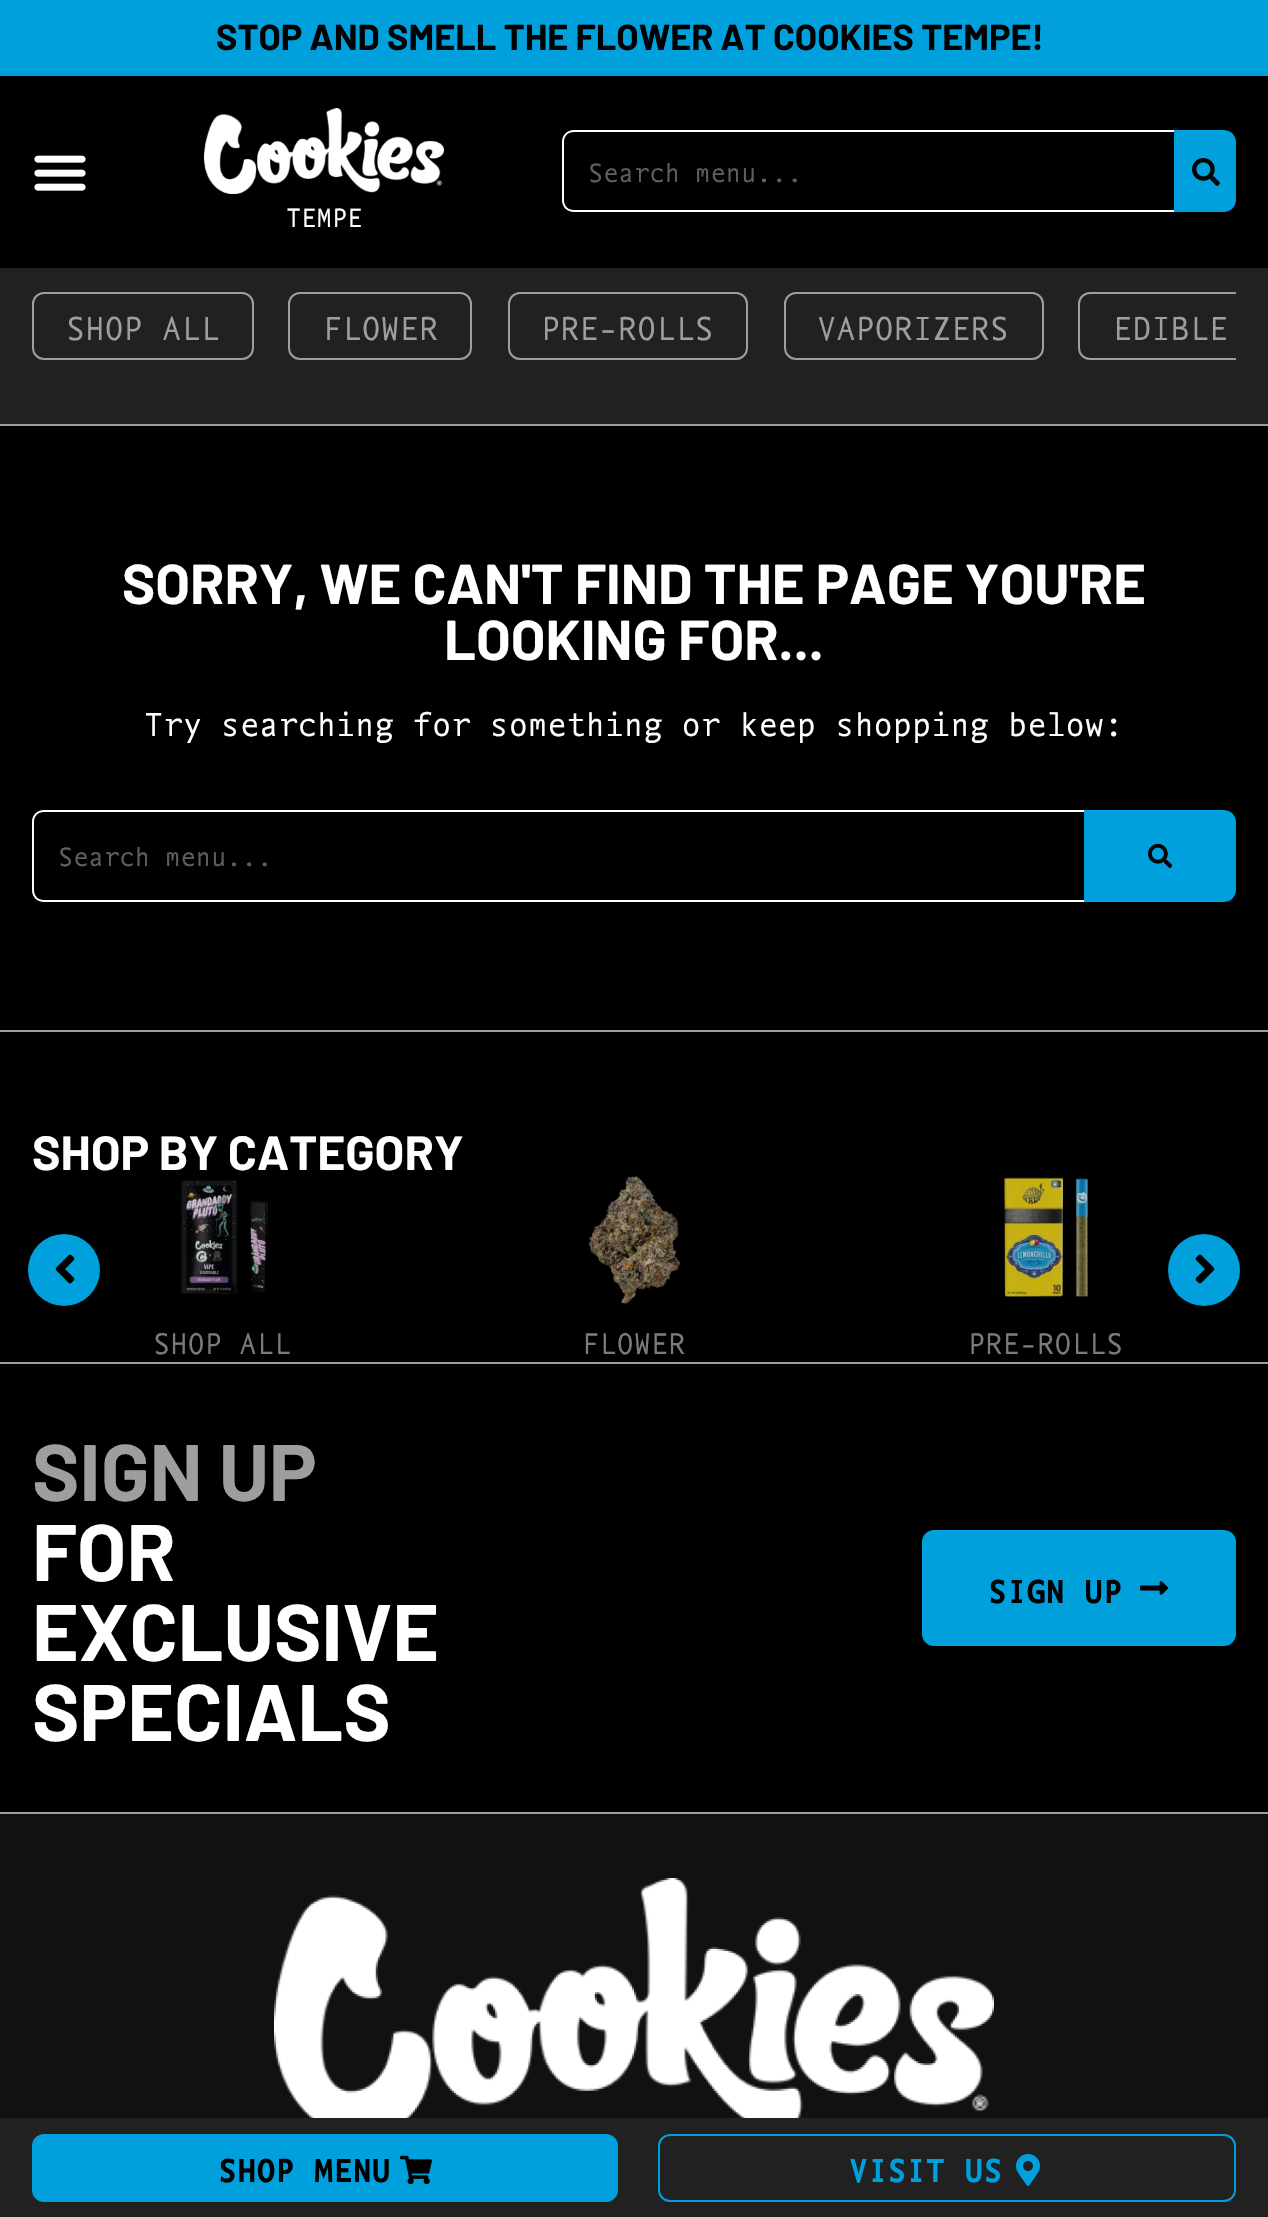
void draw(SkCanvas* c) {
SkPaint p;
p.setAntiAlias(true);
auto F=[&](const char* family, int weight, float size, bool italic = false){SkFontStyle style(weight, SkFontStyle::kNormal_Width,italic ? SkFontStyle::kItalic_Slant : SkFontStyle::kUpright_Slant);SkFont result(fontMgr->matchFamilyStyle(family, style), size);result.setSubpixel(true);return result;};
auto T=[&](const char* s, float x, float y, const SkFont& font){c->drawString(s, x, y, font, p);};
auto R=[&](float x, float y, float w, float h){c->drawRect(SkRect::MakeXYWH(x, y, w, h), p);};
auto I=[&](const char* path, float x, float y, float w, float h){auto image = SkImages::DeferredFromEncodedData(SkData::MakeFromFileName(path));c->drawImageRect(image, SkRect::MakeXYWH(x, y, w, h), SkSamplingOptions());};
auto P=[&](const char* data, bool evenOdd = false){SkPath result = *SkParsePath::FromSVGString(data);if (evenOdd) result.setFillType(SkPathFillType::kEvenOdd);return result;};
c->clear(0xff000000);
p.setColor(0xff00a0dc);
R(0,0,1268,76);
auto f1 = F("Barlow",700,36);
p.setColor(0xff000000);
T("STOP AND SMELL THE FLOWER AT COOKIES TEMPE!",216,50,f1);
I("1.png",34,155,52,36);
p.setColor(0xffffffff);
c->drawPath(P("M574 130c-7 0-12 5-12 12v58c0 7 5 12 12 12h600v-2h-600c-6 0-10-4-10-10v-58c0-6 4-10 10-10h600v-2z"),p);
auto f2 = F("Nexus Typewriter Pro",400,25.5);
p.setColor(0xff5f5f5f);
T("Search menu...",588,182,f2);
p.setColor(0xff00a0dc);
c->drawPath(P("M1174 130h50c6.5 0 12 5.5 12 12v58c0 6.5-5.5 12-12 12h-50z"),p);
I("2.png",1192,158,28,28);
I("3.png",204,108,240,86);
p.setColor(0xffffffff);
T("TEMPE",286,227,f2);
p.setColor(0xff212121);
R(0,268,1268,156);
p.setStroke(true);
p.setStrokeWidth(2);
p.setColor(0xff9e9e9e);
c->drawRoundRect(SkRect::MakeXYWH(33,293,220,66),11,11,p);
auto f3 = F("Nexus Typewriter Pro",400,32);
p.setStroke(false);
T("SHOP ALL",66,340,f3);
p.setStroke(true);
c->drawRoundRect(SkRect::MakeXYWH(289,293,182,66),11,11,p);
p.setStroke(false);
T("FLOWER",323,340,f3);
p.setStroke(true);
c->drawRoundRect(SkRect::MakeXYWH(509,293,238,66),11,11,p);
p.setStroke(false);
T("PRE-ROLLS",541,340,f3);
p.setStroke(true);
c->drawRoundRect(SkRect::MakeXYWH(785,293,258,66),11,11,p);
p.setStroke(false);
T("VAPORIZERS",817,340,f3);
c->save();
c->clipRect(SkRect::MakeXYWH(32,292,1204,68));
p.setStroke(true);
c->drawRoundRect(SkRect::MakeXYWH(1079,293,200,66),11,11,p);
c->restore();
p.setStroke(false);
T("EDIBLE",1113,340,f3);
R(0,424,1268,2);
R(0,1030,1268,2);
auto f4 = F("Barlow",700,56);
p.setColor(0xffffffff);
T("SORRY, WE CAN'T FIND THE PAGE YOU'RE",122,604,f4);
T("LOOKING FOR...",444,660,f4);
T("Try searching for something or keep shopping below:",144,736,f3);
c->drawPath(P("M44 810c-7 0-12 5-12 12v68c0 7 5 12 12 12h1040v-2h-1040c-6 0-10-4-10-10v-68c0-6 4-10 10-10h1040v-2z"),p);
p.setColor(0xff5f5f5f);
T("Search menu...",58,866,f2);
p.setColor(0xff00a0dc);
c->drawPath(P("M1084 810h140c6.5 0 12 5.5 12 12v68c0 6.5-5.5 12-12 12h-140z"),p);
I("4.png",1148,843,24,26);
auto f5 = F("Barlow",700,48);
p.setColor(0xffffffff);
T("SHOP BY CATEGORY",32,1170,f5);
p.setColor(0xff00a0dc);
c->drawCircle(64,1270,36,p);
I("5.png",55,1254,20,30);
c->drawCircle(1204,1270,36,p);
I("6.png",1195,1254,20,30);
I("7.png",181,1180,87,114);
auto f6 = F("Nexus Typewriter Pro",400,28.75);
p.setColor(0xff7a7a7a);
T("SHOP ALL",153,1354,f6);
I("8.png",588,1176,92,128);
T("FLOWER",582,1354,f6);
I("9.png",1004,1177,84,121);
T("PRE-ROLLS",968,1354,f6);
p.setColor(0xff9e9e9e);
R(0,1362,1268,2);
auto f7 = F("Barlow",700,80);
T("SIGN UP",32,1501,f7);
p.setColor(0xffffffff);
T("FOR",32,1581,f7);
T("EXCLUSIVE",32,1661,f7);
T("SPECIALS",32,1741,f7);
p.setColor(0xff00a0dc);
c->drawRoundRect(SkRect::MakeXYWH(923,1531,312,114),11,11,p);
p.setStroke(true);
c->drawRoundRect(SkRect::MakeXYWH(923,1531,312,114),11,11,p);
auto f8 = F("Nexus Typewriter Pro",700,32);
p.setStroke(false);
p.setColor(0xff000000);
T("SIGN UP",988,1603,f8);
I("10.png",1140,1581,28,14);
p.setColor(0xff111111);
R(0,1814,1268,304);
p.setColor(0xff9e9e9e);
R(0,1812,1268,2);
I("11.png",274,1878,720,240);
p.setColor(0xff212121);
R(0,2118,1268,99);
p.setColor(0xff00a0dc);
c->drawRoundRect(SkRect::MakeXYWH(33,2135,584,66),11,11,p);
p.setStroke(true);
c->drawRoundRect(SkRect::MakeXYWH(33,2135,584,66),11,11,p);
p.setStroke(false);
p.setColor(0xff000000);
T("SHOP MENU",218,2182,f8);
I("12.png",400,2155,32,30);
p.setStroke(true);
p.setColor(0xff00a0dc);
c->drawRoundRect(SkRect::MakeXYWH(659,2135,576,66),11,11,p);
p.setStroke(false);
T("VISIT US",849,2182,f8);
I("13.png",1016,2154,24,32);
}
